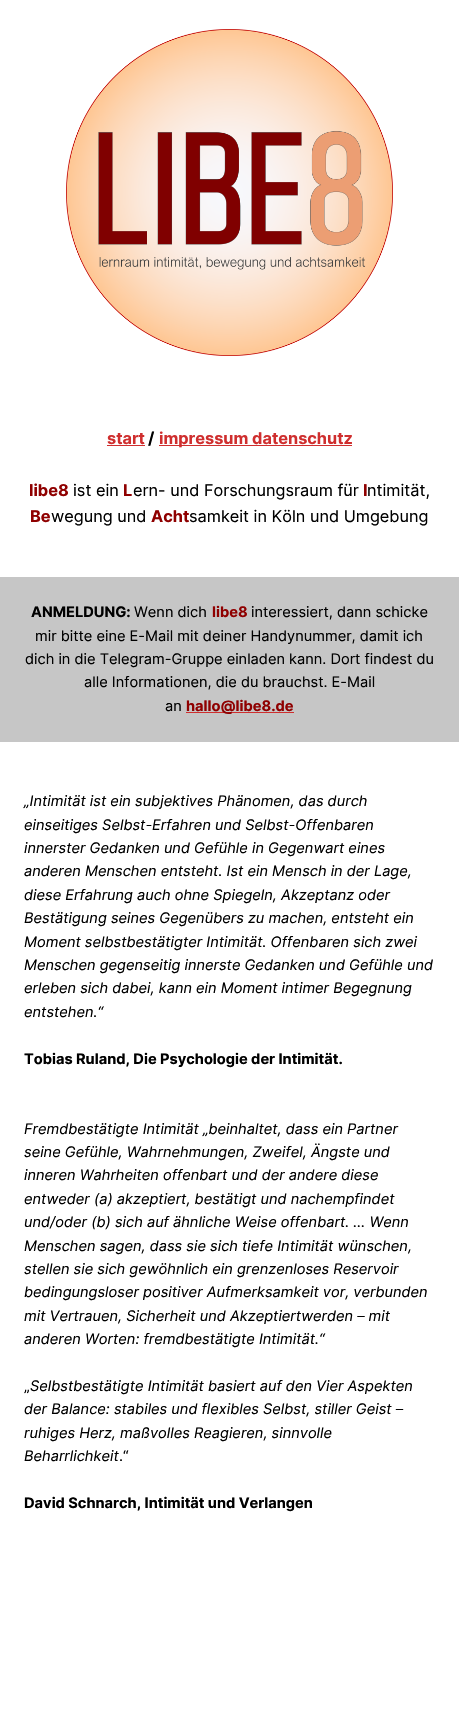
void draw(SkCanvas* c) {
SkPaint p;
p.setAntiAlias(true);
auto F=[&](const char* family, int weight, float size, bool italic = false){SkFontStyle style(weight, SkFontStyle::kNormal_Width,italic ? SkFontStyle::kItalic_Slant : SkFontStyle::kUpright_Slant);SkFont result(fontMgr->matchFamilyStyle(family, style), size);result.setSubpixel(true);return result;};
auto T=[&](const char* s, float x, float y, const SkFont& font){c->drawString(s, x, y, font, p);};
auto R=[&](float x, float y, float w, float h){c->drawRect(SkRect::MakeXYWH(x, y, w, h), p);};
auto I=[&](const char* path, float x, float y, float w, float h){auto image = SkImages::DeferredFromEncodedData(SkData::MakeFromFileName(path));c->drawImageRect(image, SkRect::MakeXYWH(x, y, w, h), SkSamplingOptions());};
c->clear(0xffffffff);
I("1.png",66,29,327,327);
auto f1 = F("Inter",700,16.3);
p.setColor(0xffcf2e2e);
T("start",107,444,f1);
R(107,445,38,1);
p.setColor(0xff000000);
T("/",148,444,f1);
p.setColor(0xffcf2e2e);
R(159,445,193,1);
T("impressum datenschutz",159,444,f1);
p.setColor(0xff8f0000);
T("libe8",29,496,f1);
auto f2 = F("Inter",400,16.3);
p.setColor(0xff000000);
T("ist ein",73,496,f2);
p.setColor(0xff8f0000);
T("L",123,496,f1);
p.setColor(0xff000000);
T("ern- und Forschungsraum für",133,496,f2);
p.setColor(0xff8f0000);
T("I",363,496,f1);
p.setColor(0xff000000);
T("ntimität,",367,496,f2);
p.setColor(0xff8f0000);
T("Be",30,522,f1);
p.setColor(0xff000000);
T("wegung und",51,522,f2);
p.setColor(0xff8f0000);
T("Acht",151,522,f1);
p.setColor(0xff000000);
T("samkeit in Köln und Umgebung",189,522,f2);
p.setColor(0xffc6c6c6);
R(0,577,459,165);
auto f3 = F("Inter",700,14.6);
p.setColor(0xff000000);
T("ANMELDUNG:",31,617,f3);
auto f4 = F("Inter",400,14.6);
T("Wenn dich",134,617,f4);
p.setColor(0xff8f0000);
T("libe8",212,617,f3);
p.setColor(0xff000000);
T("interessiert, dann schicke",251,617,f4);
T("mir bitte eine E-Mail mit deiner Handynummer, damit ich",35,641,f4);
T("dich in die Telegram-Gruppe einladen kann. Dort findest du",25,664,f4);
T("alle Informationen, die du brauchst. E-Mail",84,687,f4);
T("an",165,711,f4);
p.setColor(0xffcf2e2e);
R(186,712,108,1);
p.setColor(0xff8f0000);
T("hallo@libe8.de",186,711,f3);
auto f5 = F("Inter",400,14.6,true);
p.setColor(0xff000000);
T("„Intimität ist ein subjektives Phänomen, das durch",24,806,f5);
T("einseitiges Selbst-Erfahren und Selbst-Offenbaren",24,830,f5);
T("innerster Gedanken und Gefühle in Gegenwart eines",24,853,f5);
T("anderen Menschen entsteht. Ist ein Mensch in der Lage,",24,876,f5);
T("diese Erfahrung auch ohne Spiegeln, Akzeptanz oder",24,900,f5);
T("Bestätigung seines Gegenübers zu machen, entsteht ein",24,923,f5);
T("Moment selbstbestätigter Intimität. Offenbaren sich zwei",24,947,f5);
T("Menschen gegenseitig innerste Gedanken und Gefühle und",24,970,f5);
T("erleben sich dabei, kann ein Moment intimer Begegnung",24,993,f5);
T("entstehen.“",24,1017,f5);
T("Tobias Ruland, Die Psychologie der Intimität.",24,1064,f3);
T("Fremdbestätigte Intimität „beinhaltet, dass ein Partner",24,1134,f5);
T("seine Gefühle, Wahrnehmungen, Zweifel, Ängste und",24,1157,f5);
T("inneren Wahrheiten offenbart und der andere diese",24,1180,f5);
T("entweder (a) akzeptiert, bestätigt und nachempfindet",24,1204,f5);
T("und/oder (b) sich auf ähnliche Weise offenbart. … Wenn",24,1227,f5);
T("Menschen sagen, dass sie sich tiefe Intimität wünschen,",24,1251,f5);
T("stellen sie sich gewöhnlich ein grenzenloses Reservoir",24,1274,f5);
T("bedingungsloser positiver Aufmerksamkeit vor, verbunden",24,1297,f5);
T("mit Vertrauen, Sicherheit und Akzeptiertwerden – mit",24,1321,f5);
T("anderen Worten: fremdbestätigte Intimität.“",24,1344,f5);
T("„",24,1391,f4);
T("Selbstbestätigte Intimität basiert auf den Vier Aspekten",30,1391,f5);
T("der Balance: stabiles und flexibles Selbst, stiller Geist –",24,1414,f5);
T("ruhiges Herz, maßvolles Reagieren, sinnvolle",24,1438,f5);
T("Beharrlichkeit",24,1461,f5);
T(".“",119,1461,f4);
T("David Schnarch, Intimität und Verlangen",24,1508,f3);
}
